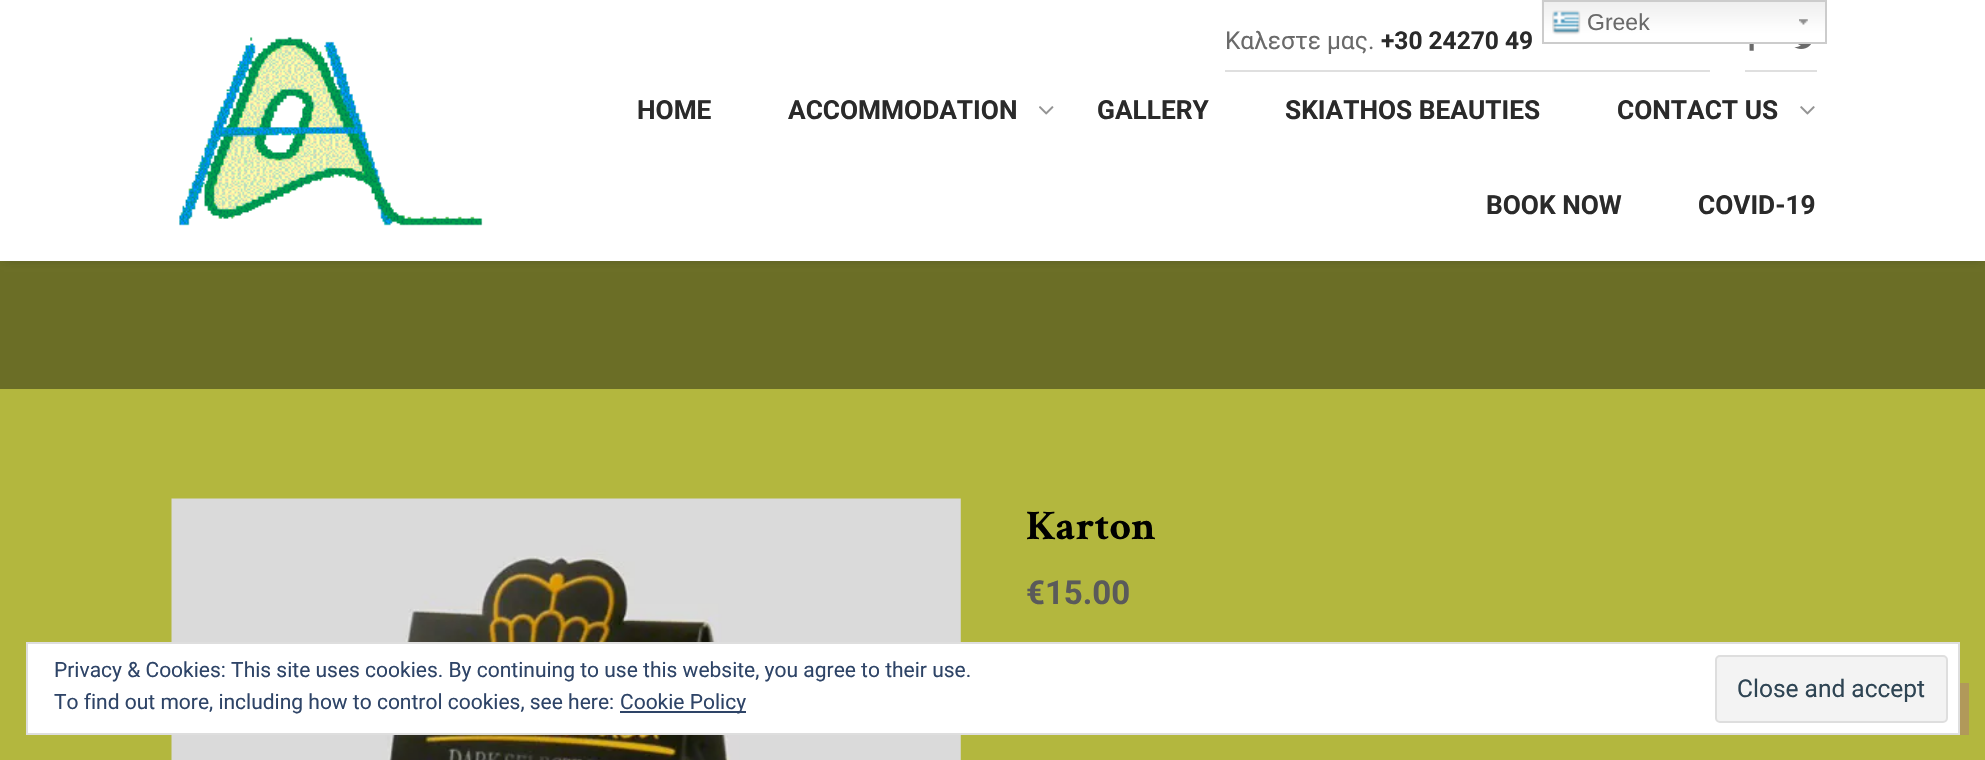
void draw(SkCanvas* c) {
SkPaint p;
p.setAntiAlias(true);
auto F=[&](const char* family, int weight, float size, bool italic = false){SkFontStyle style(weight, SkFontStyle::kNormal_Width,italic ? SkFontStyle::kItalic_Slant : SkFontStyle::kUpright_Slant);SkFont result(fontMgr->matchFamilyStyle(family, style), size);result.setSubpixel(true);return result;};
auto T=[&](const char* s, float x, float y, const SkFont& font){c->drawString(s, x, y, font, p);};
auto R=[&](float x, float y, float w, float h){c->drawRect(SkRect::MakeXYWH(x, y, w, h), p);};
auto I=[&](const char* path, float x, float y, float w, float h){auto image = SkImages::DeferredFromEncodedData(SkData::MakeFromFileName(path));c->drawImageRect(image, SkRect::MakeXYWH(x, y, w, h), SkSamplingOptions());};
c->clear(0xffb3b73e);
p.setColor(0xff6b6e26);
R(0,261,1985,128);
p.setColor(0x662a2a2a);
p.setMaskFilter(SkMaskFilter::MakeBlur(kNormal_SkBlurStyle, 4.5));
c->drawRect(SkRect::MakeXYWH(4,5,1979,254),p);
p.setMaskFilter(nullptr);
p.setColor(0xffffffff);
R(0,0,1985,261);
I("1.png",1541,0,284,34);
I("2.png",1799,19,9,6);
p.setStroke(true);
p.setStrokeWidth(2);
p.setColor(0xffcccccc);
c->drawRect(SkRect::MakeXYWH(1543,1,283,42),p);
I("3.png",1552,10,29,25);
auto f1 = F("Liberation Sans",400,23);
p.setStroke(false);
p.setColor(0xff6a6a6a);
T("Greek",1587,30,f1);
I("4.png",179,37,304,189);
p.setColor(0xffdfdfdf);
R(1225,70,485,2);
auto f2 = F("Roboto",400,24.5);
p.setColor(0xff6a6a6a);
T("Καλεστε μας.",1225,49,f2);
auto f3 = F("Roboto",700,24.5);
p.setColor(0xff2a2a2a);
T("+30 24270 49",1381,49,f3);
p.setColor(0xffdfdfdf);
R(1745,70,72,2);
I("5.png",1749,44,5,7);
I("6.png",1794,44,17,5);
auto f4 = F("Roboto",700,26.25);
p.setColor(0xff2a2a2a);
T("HOME",637,119,f4);
T("ACCOMMODATION",788,119,f4);
I("7.png",1039,106,15,9);
T("GALLERY",1097,119,f4);
T("SKIATHOS BEAUTIES",1285,119,f4);
T("CONTACT US",1617,119,f4);
I("8.png",1800,106,15,9);
T("BOOK NOW",1486,214,f4);
T("COVID-19",1698,214,f4);
I("9.png",171,498,790,262);
auto f5 = F("Crimson Text",700,42);
p.setColor(0xff000000);
T("Karton",1026,539,f5);
auto f6 = F("Roboto",700,33);
p.setColor(0xff5a5a5a);
T("€15.00",1026,604,f6);
p.setColor(0xffb1995a);
R(1960,683,9,52);
p.setColor(0xffffffff);
c->drawRect(SkRect::MakeXYWH(27,643,1932,91),p);
p.setStroke(true);
p.setColor(0xffdedede);
c->drawRect(SkRect::MakeXYWH(27,643,1932,91),p);
auto f7 = F("Roboto",400,21);
p.setStroke(false);
p.setColor(0xff2e4467);
T("Privacy & Cookies: This site uses cookies. By continuing to use this website, you agree to their use.",54,677,f7);
T("To find out more, including how to control cookies, see here:",54,709,f7);
R(620,711,126,2);
T("Cookie Policy",620,709,f7);
p.setColor(0xfff3f3f3);
c->drawRoundRect(SkRect::MakeXYWH(1716,656,231,66),4,4,p);
p.setStroke(true);
p.setColor(0xffdedede);
c->drawRoundRect(SkRect::MakeXYWH(1716,656,231,66),4,4,p);
p.setStroke(false);
p.setColor(0xff2e4453);
T("Close and accept",1737,697,f2);
}
